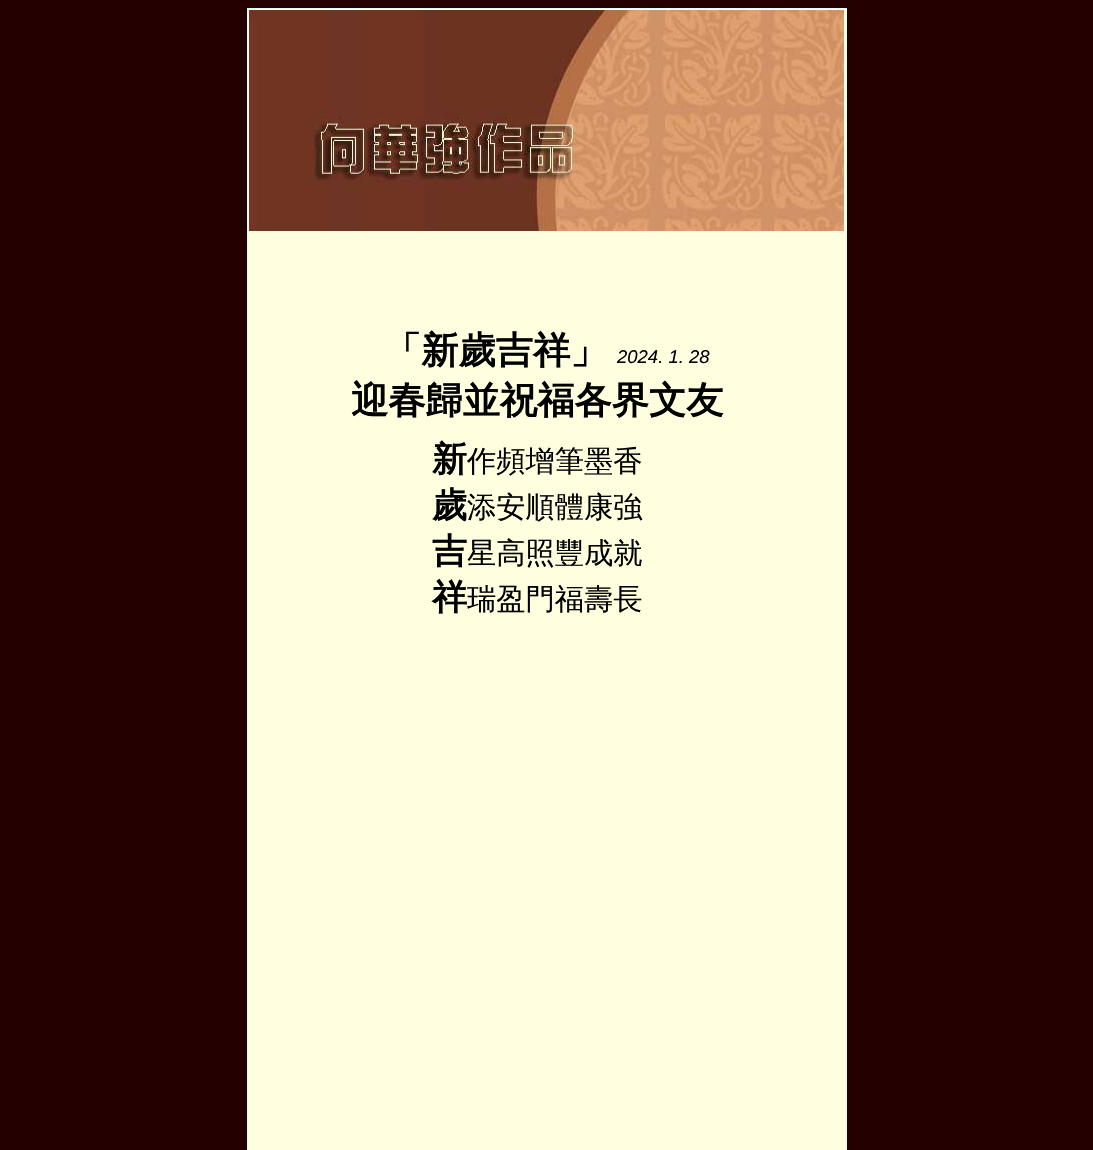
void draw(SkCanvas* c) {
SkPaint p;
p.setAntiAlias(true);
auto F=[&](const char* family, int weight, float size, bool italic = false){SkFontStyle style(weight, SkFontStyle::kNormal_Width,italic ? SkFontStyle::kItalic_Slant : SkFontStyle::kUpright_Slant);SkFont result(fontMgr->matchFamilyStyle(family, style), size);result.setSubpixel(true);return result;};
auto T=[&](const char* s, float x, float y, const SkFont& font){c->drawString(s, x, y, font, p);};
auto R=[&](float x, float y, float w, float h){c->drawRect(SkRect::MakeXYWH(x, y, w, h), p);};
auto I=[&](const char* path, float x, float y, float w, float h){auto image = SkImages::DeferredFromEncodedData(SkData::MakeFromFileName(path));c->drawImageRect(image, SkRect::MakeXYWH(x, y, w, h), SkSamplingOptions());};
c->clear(0xff240000);
p.setColor(0xffffffdf);
R(248,9,598,1141);
p.setColor(0xffddfdff);
R(247,8,600,1);
R(846,8,1,1142);
R(247,8,1,1142);
I("1.png",249,10,595,221);
auto f1 = F("WenQuanYi Zen Hei",700,37.25);
p.setColor(0xff000000);
T("「新歲吉祥」",384,363,f1);
auto f2 = F("Liberation Sans",400,18.5,true);
T("2024. 1. 28",617,363,f2);
T("迎春歸並祝福各界文友",351,413,f1);
auto f3 = F("WenQuanYi Zen Hei",700,35);
T("新",432,471,f3);
auto f4 = F("WenQuanYi Zen Hei",500,29.25);
T("作頻增筆墨香",467,471,f4);
T("歲",432,517,f3);
T("添安順體康強",467,517,f4);
T("吉",432,563,f3);
T("星高照豐成就",467,563,f4);
T("祥",432,609,f3);
T("瑞盈門福壽長",467,609,f4);
}
